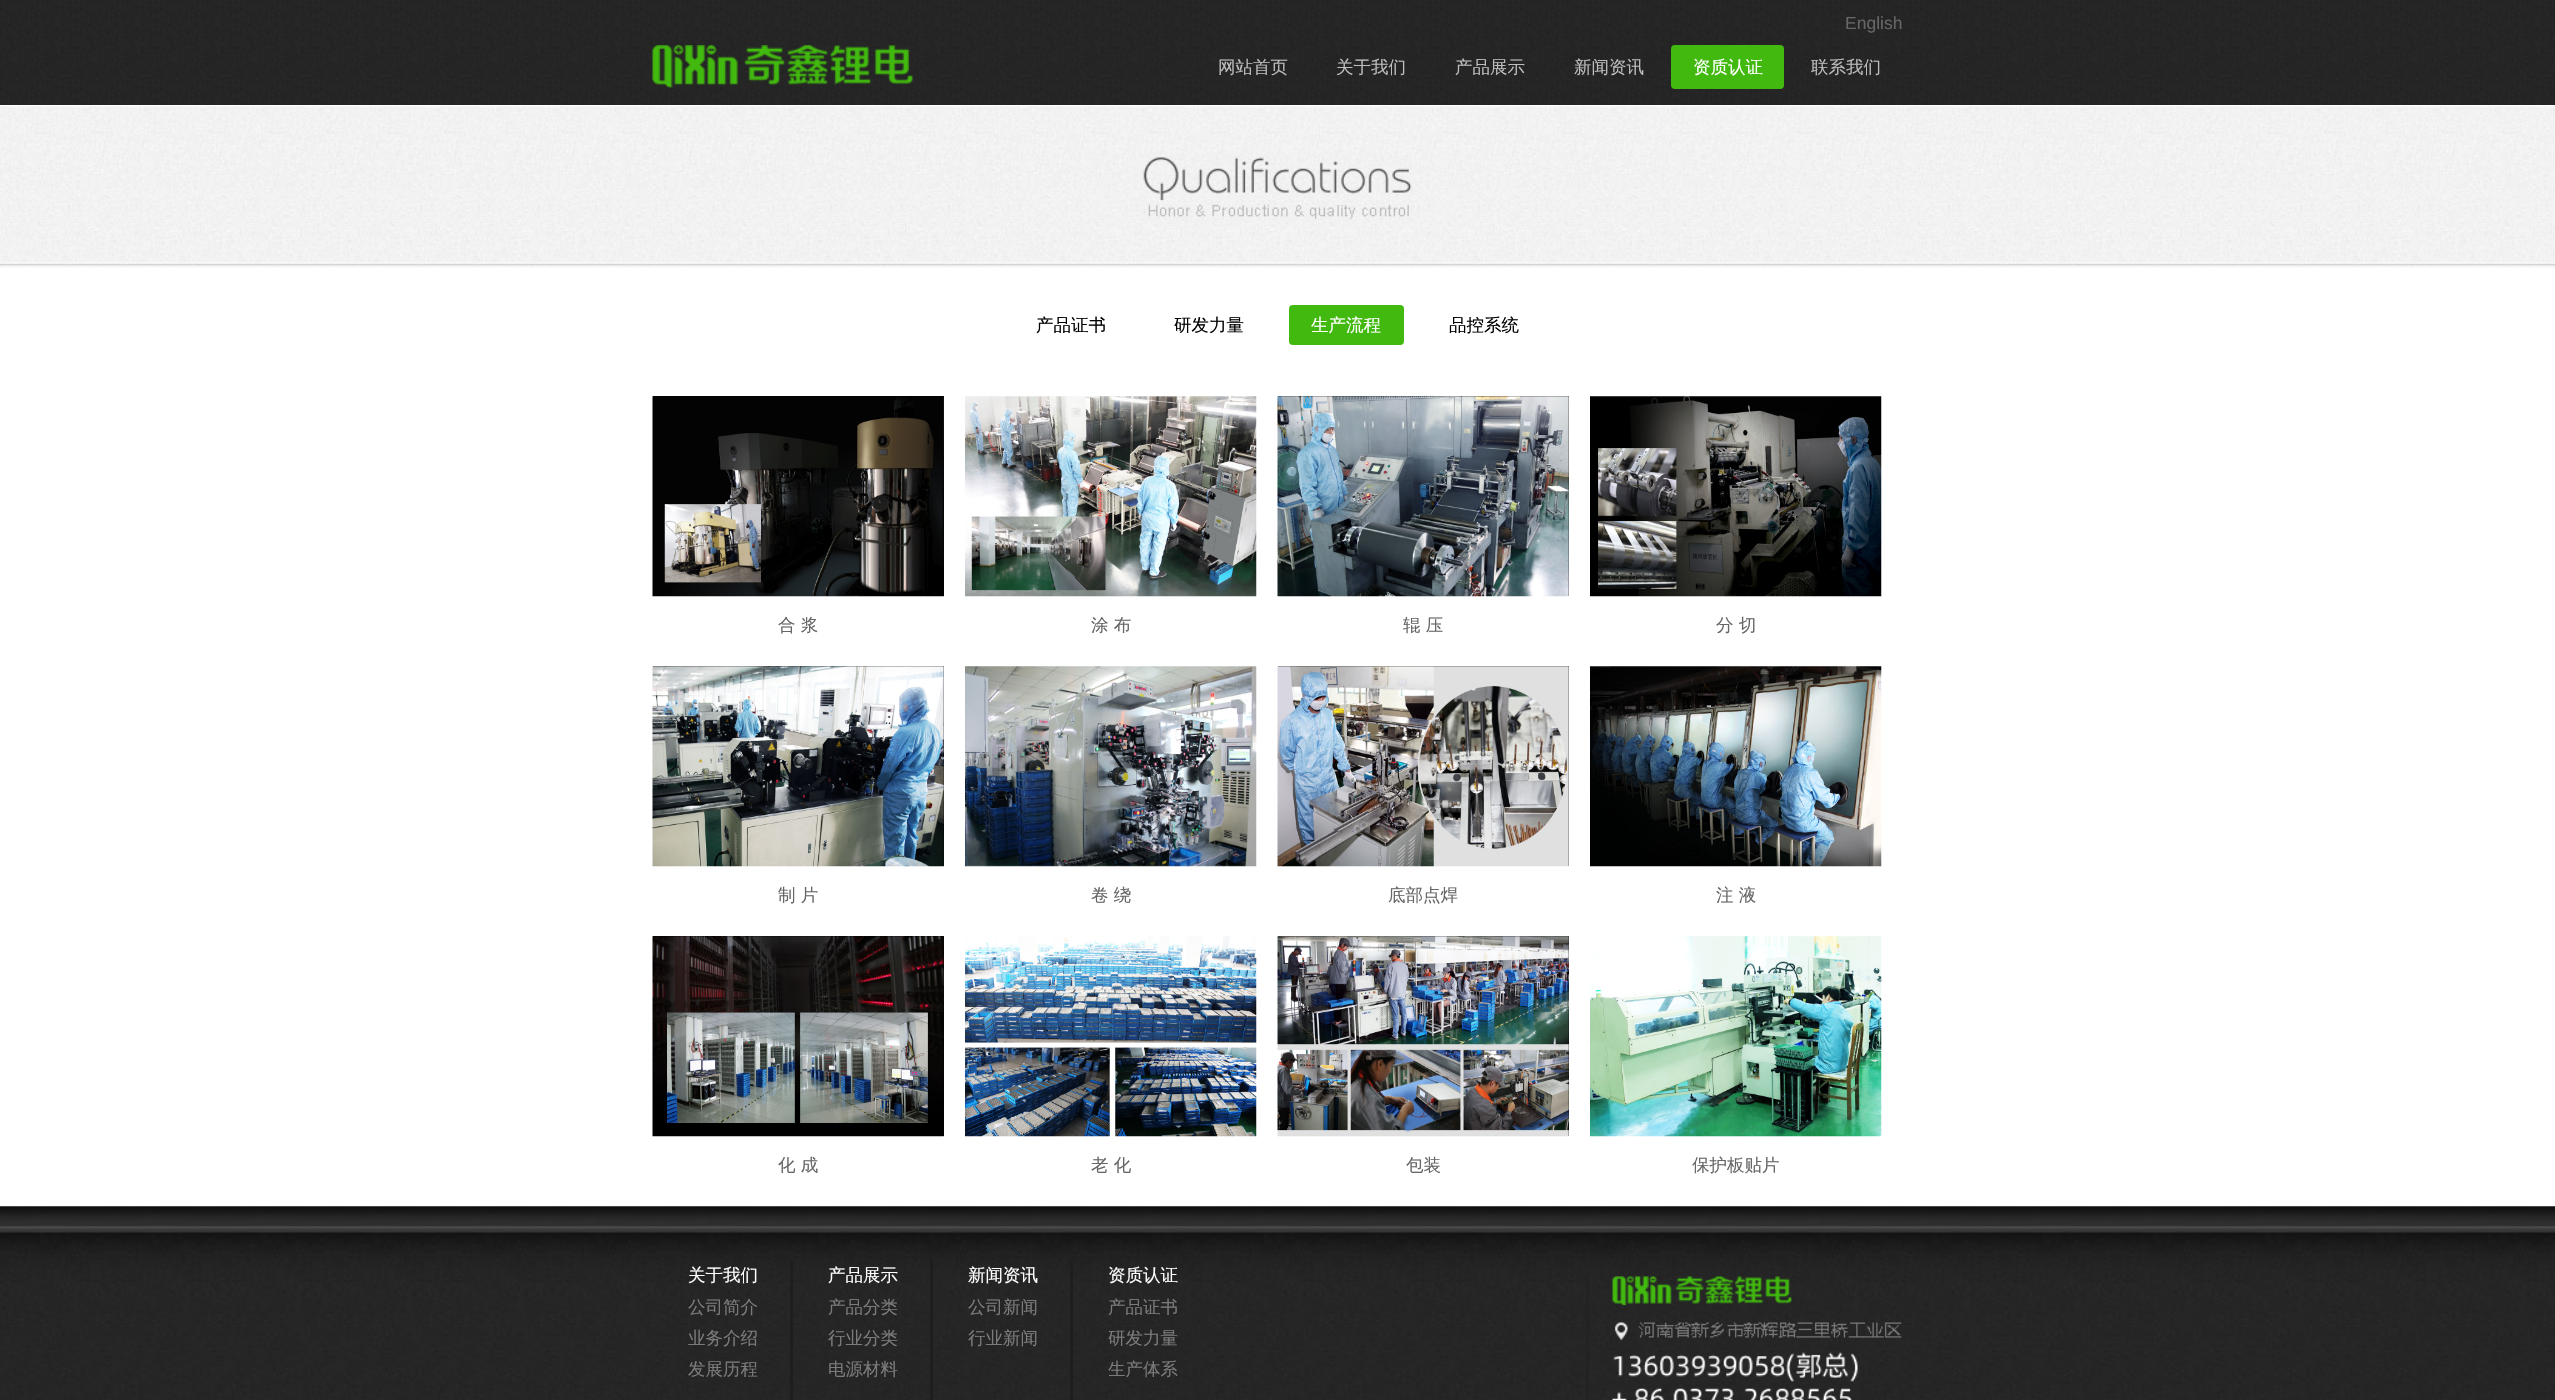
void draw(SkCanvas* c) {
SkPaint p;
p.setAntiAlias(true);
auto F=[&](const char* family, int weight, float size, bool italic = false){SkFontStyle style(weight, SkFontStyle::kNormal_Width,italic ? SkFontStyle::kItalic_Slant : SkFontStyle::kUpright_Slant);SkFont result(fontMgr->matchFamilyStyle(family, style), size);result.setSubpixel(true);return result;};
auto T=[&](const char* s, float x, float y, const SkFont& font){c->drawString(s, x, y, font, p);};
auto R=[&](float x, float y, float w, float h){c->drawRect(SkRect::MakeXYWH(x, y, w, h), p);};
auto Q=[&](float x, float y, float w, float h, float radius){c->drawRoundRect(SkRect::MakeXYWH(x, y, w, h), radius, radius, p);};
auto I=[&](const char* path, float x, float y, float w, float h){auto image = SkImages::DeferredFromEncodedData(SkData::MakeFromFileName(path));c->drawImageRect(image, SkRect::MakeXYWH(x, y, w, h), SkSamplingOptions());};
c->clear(0xffffffff);
I("1.png",0,0,2555,105);
auto f1 = F("Liberation Sans",400,17.5);
p.setColor(0xff666666);
T("English",1845,29,f1);
I("2.png",652,45,261,43);
auto f2 = F("WenQuanYi Zen Hei",500,17.5);
p.setColor(0xffbdbdbd);
T("网站首页",1218,73,f2);
T("关于我们",1336,73,f2);
T("产品展示",1455,73,f2);
T("新闻资讯",1574,73,f2);
p.setColor(0xff41b90e);
Q(1671,45,113,44,4);
p.setColor(0xffffffff);
T("资质认证",1693,73,f2);
p.setColor(0xffbdbdbd);
T("联系我们",1811,73,f2);
I("3.png",0,106,2555,162);
I("4.png",1141,155,273,66);
p.setColor(0xff000000);
T("产品证书",1036,331,f2);
T("研发力量",1174,331,f2);
p.setColor(0xff41b90e);
Q(1289,305,115,40,4);
p.setColor(0xffffffff);
T("生产流程",1311,331,f2);
p.setColor(0xff000000);
T("品控系统",1449,331,f2);
R(653,396,291,200);
I("5.png",652,396,292,201);
p.setColor(0xff666666);
T("合 浆",778,631,f2);
I("6.png",965,396,292,201);
T("涂 布",1091,631,f2);
p.setColor(0xff000000);
R(1278,396,291,200);
I("7.png",1277,396,292,201);
p.setColor(0xff666666);
T("辊 压",1403,631,f2);
I("8.png",1590,396,292,201);
T("分 切",1716,631,f2);
p.setColor(0xff000000);
R(653,666,291,200);
I("9.png",652,666,292,201);
p.setColor(0xff666666);
T("制 片",778,901,f2);
I("10.png",965,666,292,201);
T("卷 绕",1091,901,f2);
p.setColor(0xff000000);
R(1278,666,291,200);
I("11.png",1277,666,292,201);
p.setColor(0xff666666);
T("底部点焊",1388,901,f2);
I("12.png",1590,666,292,201);
T("注 液",1716,901,f2);
p.setColor(0xff000000);
R(653,936,291,200);
I("13.png",652,936,292,201);
p.setColor(0xff666666);
T("化 成",778,1171,f2);
I("14.png",965,936,292,201);
T("老 化",1091,1171,f2);
p.setColor(0xff000000);
R(1278,936,291,200);
I("15.png",1277,936,292,201);
p.setColor(0xff666666);
T("包装",1406,1171,f2);
I("16.png",1590,936,292,201);
T("保护板贴片",1692,1171,f2);
I("17.png",0,1206,2555,194);
p.setColor(0xff1e1e1e);
R(790,1260,3,140);
p.setColor(0xffffffff);
T("关于我们",688,1281,f2);
p.setColor(0xff7b7b7b);
T("公司简介",688,1313,f2);
T("业务介绍",688,1344,f2);
T("发展历程",688,1375,f2);
p.setColor(0xff1e1e1e);
R(930,1260,3,140);
p.setColor(0xffffffff);
T("产品展示",828,1281,f2);
p.setColor(0xff7b7b7b);
T("产品分类",828,1313,f2);
T("行业分类",828,1344,f2);
T("电源材料",828,1375,f2);
p.setColor(0xff1e1e1e);
R(1070,1260,3,140);
p.setColor(0xffffffff);
T("新闻资讯",968,1281,f2);
p.setColor(0xff7b7b7b);
T("公司新闻",968,1313,f2);
T("行业新闻",968,1344,f2);
p.setColor(0xffffffff);
T("资质认证",1108,1281,f2);
p.setColor(0xff7b7b7b);
T("产品证书",1108,1313,f2);
T("研发力量",1108,1344,f2);
T("生产体系",1108,1375,f2);
p.setColor(0xff232323);
R(1586,1272,3,128);
I("18.png",1612,1276,290,124);
}
